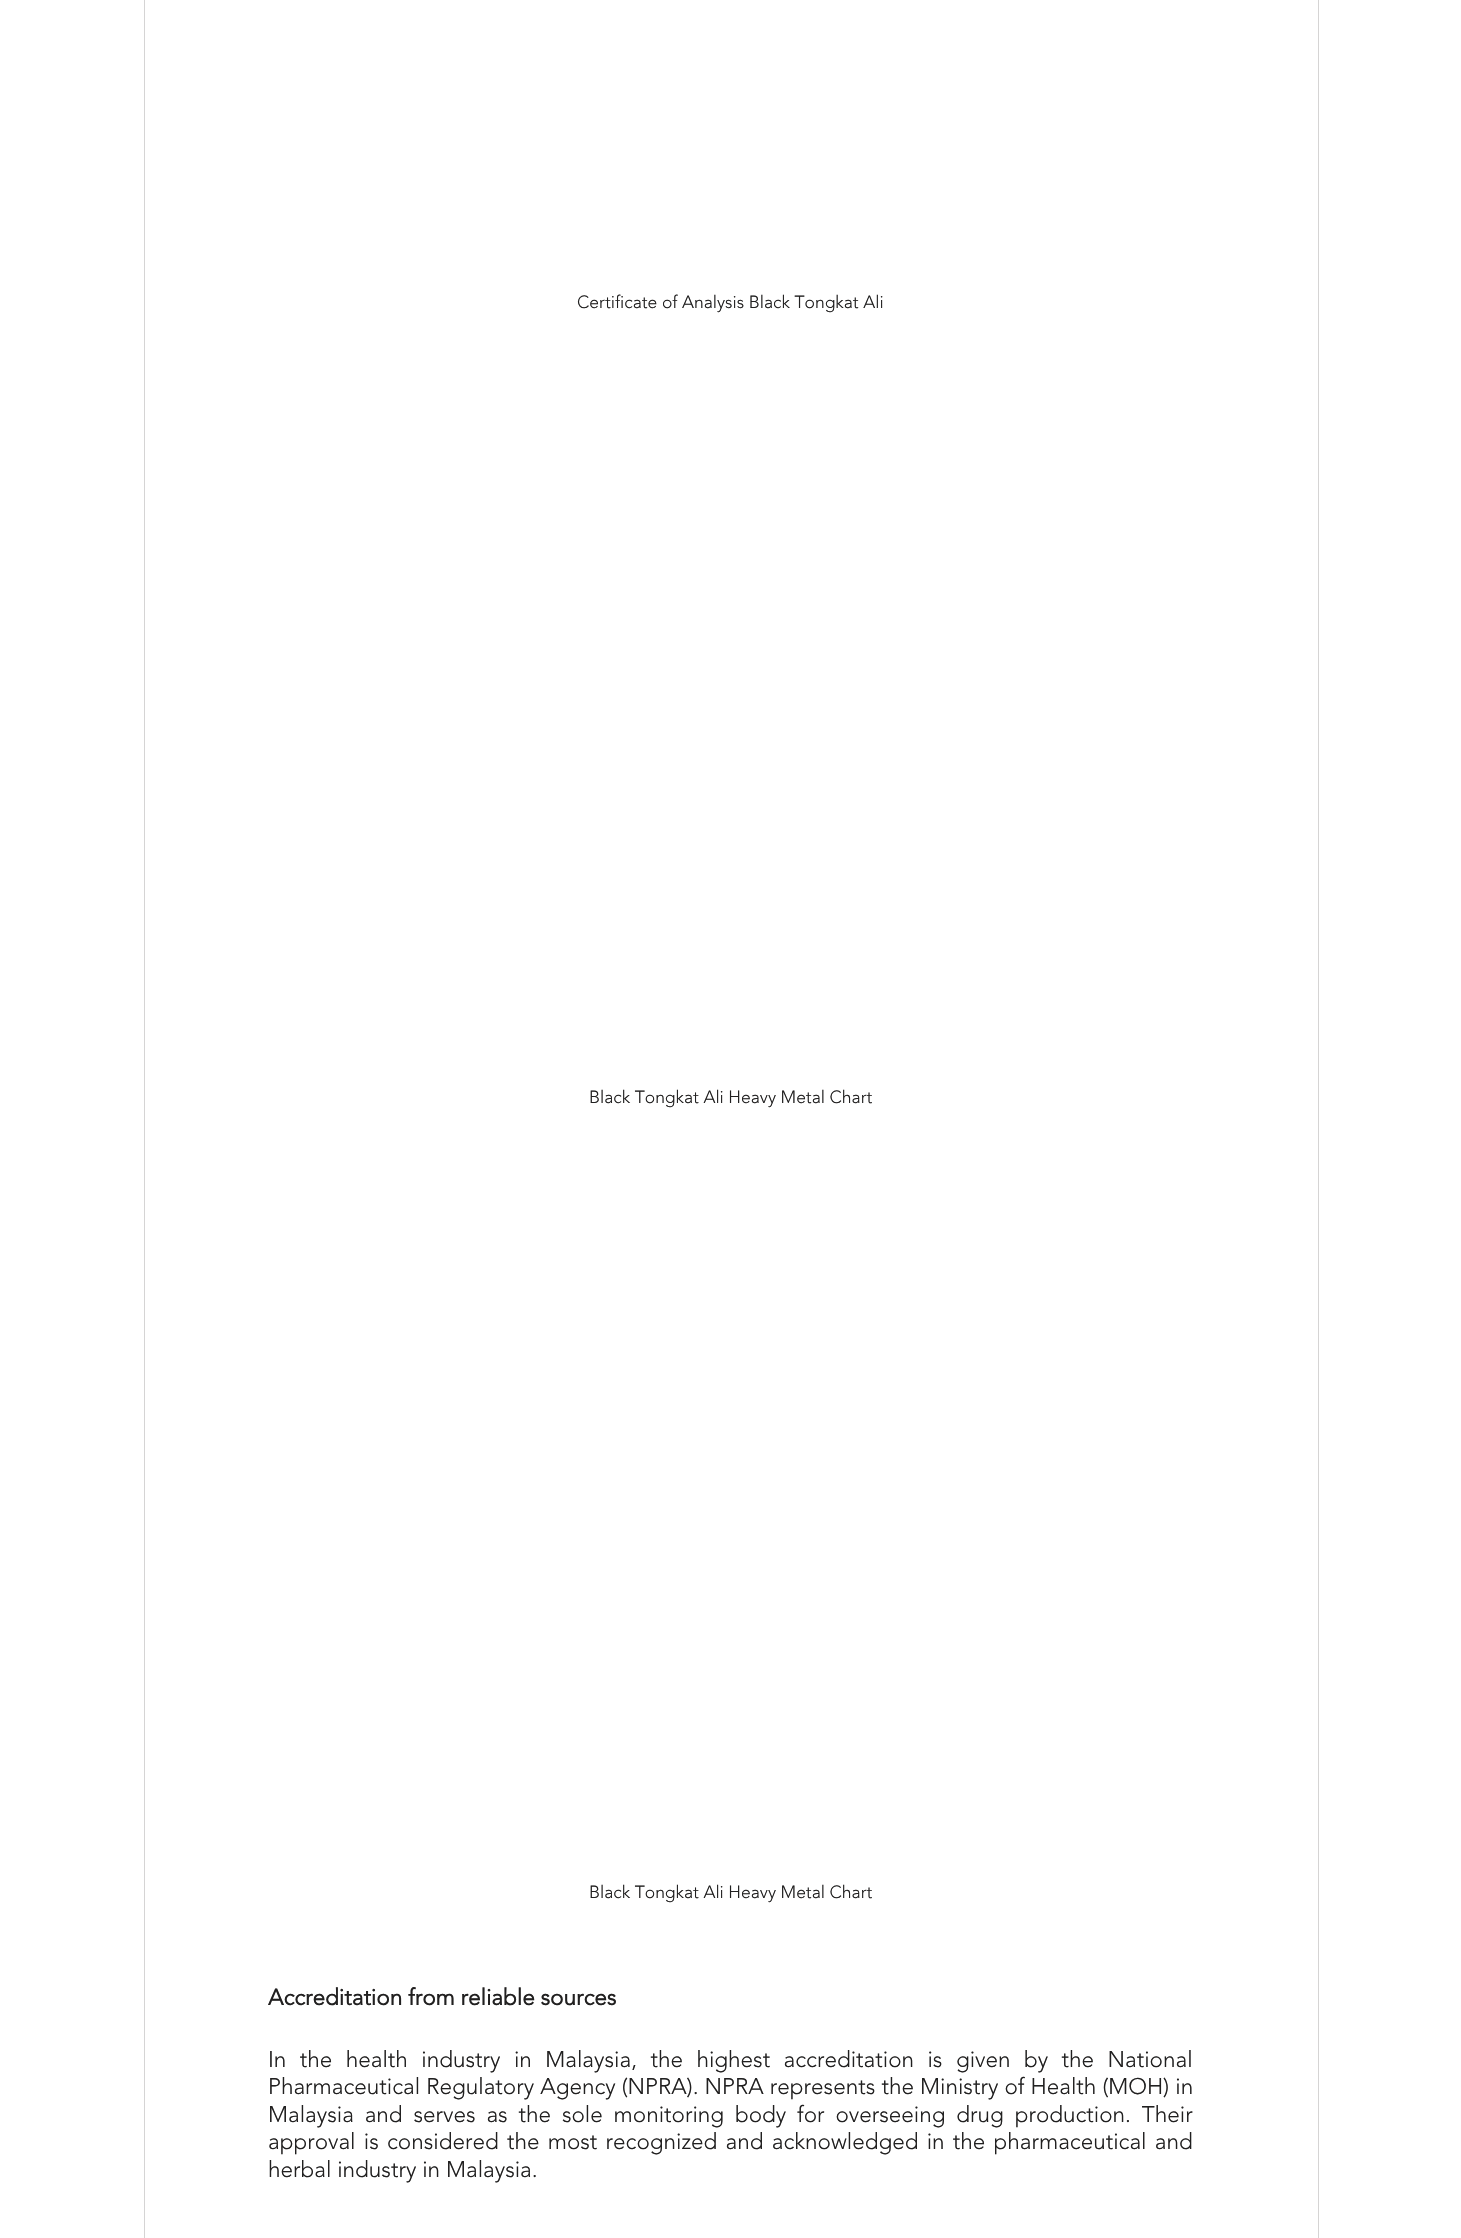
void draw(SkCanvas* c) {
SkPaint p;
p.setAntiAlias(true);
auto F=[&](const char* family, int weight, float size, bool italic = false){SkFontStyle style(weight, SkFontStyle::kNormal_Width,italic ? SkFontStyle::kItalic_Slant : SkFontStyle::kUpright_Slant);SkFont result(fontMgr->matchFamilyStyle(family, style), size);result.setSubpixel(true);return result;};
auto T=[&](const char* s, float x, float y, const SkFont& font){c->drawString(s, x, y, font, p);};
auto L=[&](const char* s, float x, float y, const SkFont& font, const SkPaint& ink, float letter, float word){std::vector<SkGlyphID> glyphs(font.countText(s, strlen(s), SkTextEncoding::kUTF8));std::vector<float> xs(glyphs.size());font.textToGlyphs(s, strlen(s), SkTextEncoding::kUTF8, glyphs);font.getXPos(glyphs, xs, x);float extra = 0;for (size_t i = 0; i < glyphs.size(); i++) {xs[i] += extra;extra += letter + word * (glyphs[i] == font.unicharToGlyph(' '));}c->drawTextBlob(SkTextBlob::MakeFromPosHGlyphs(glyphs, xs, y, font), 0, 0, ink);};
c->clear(0xffffffff);
p.setStroke(true);
p.setStrokeWidth(1);
p.setColor(0xffd5d4d4);
c->drawRect(SkRect::MakeXYWH(144.5,-.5,1174,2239),p);
auto f1 = F("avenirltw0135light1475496",300,17.5);
p.setStroke(false);
p.setColor(0xff212020);
T("Certificate of Analysis Black Tongkat Ali",577,308,f1);
T("Black Tongkat Ali Heavy Metal Chart",589,1103,f1);
T("Black Tongkat Ali Heavy Metal Chart",589,1898,f1);
auto f2 = F("avenirltw0135light1475496",700,22.5);
T("Accreditation from reliable sources",268,2005,f2);
auto f3 = F("avenirltw0135light1475496",300,22.5);
L("In the health industry in Malaysia, the highest accreditation is given by the National",268,2067,f3,p,0,7.6);
L("Pharmaceutical Regulatory Agency (NPRA). NPRA represents the Ministry of Health (MOH) in",268,2094,f3,p,0,.25);
L("Malaysia and serves as the sole monitoring body for overseeing drug production. Their",268,2122,f3,p,0,5);
L("approval is considered the most recognized and acknowledged in the pharmaceutical and",268,2149,f3,p,0,2.4);
T("herbal industry in Malaysia.",268,2177,f3);
}
